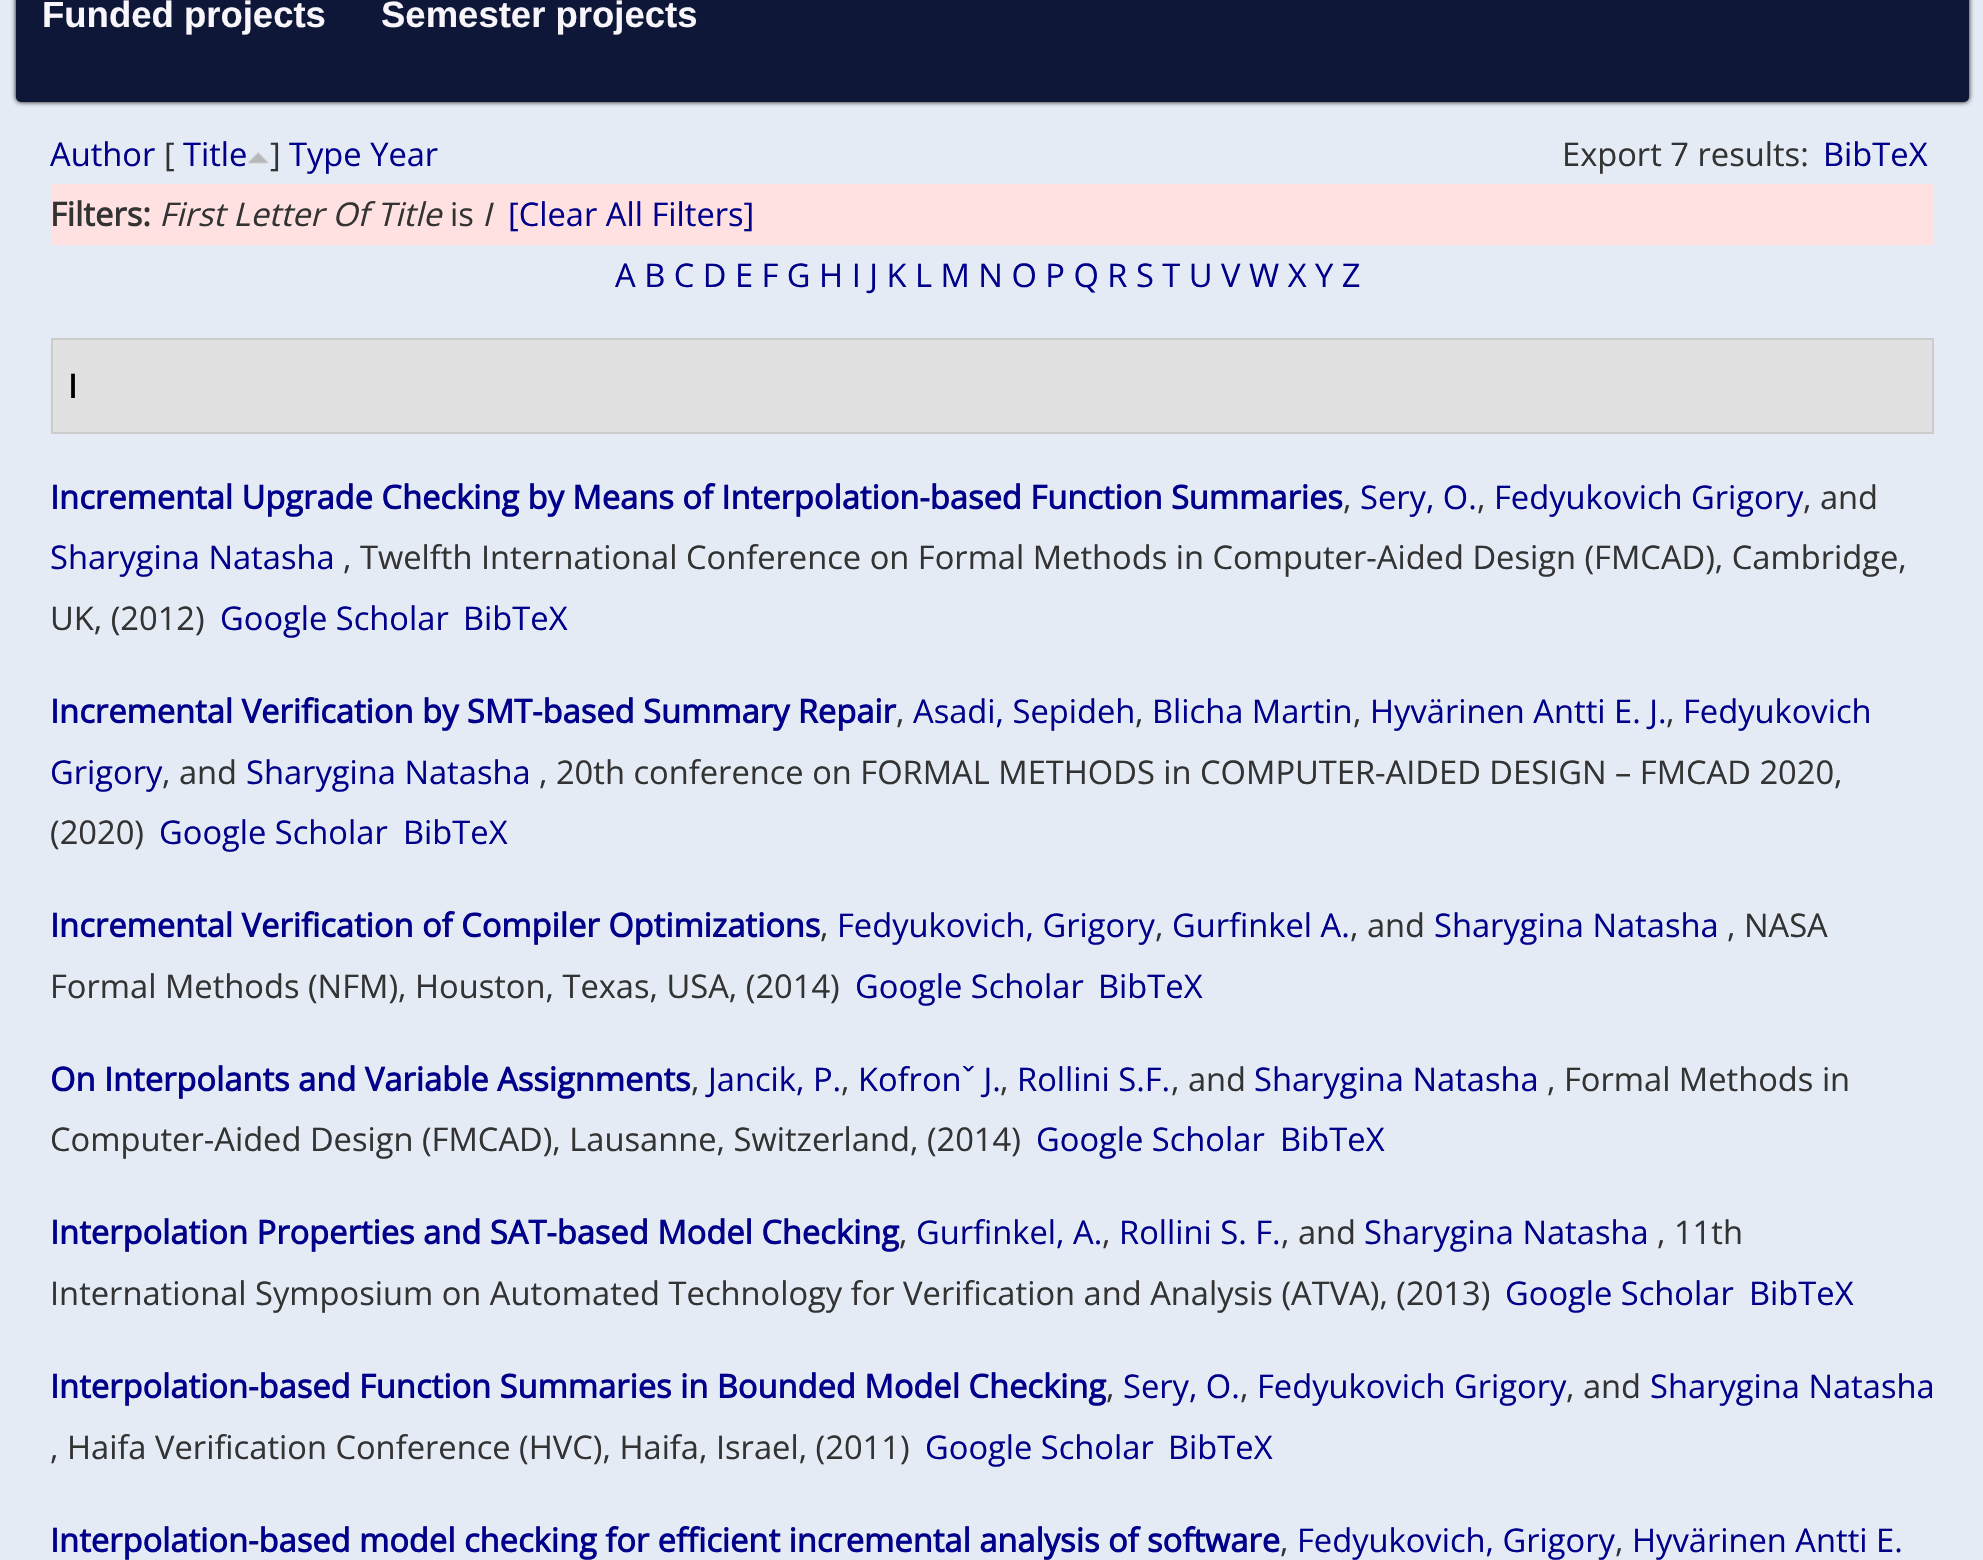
void draw(SkCanvas* c) {
SkPaint p;
p.setAntiAlias(true);
auto F=[&](const char* family, int weight, float size, bool italic = false){SkFontStyle style(weight, SkFontStyle::kNormal_Width,italic ? SkFontStyle::kItalic_Slant : SkFontStyle::kUpright_Slant);SkFont result(fontMgr->matchFamilyStyle(family, style), size);result.setSubpixel(true);return result;};
auto T=[&](const char* s, float x, float y, const SkFont& font){c->drawString(s, x, y, font, p);};
auto R=[&](float x, float y, float w, float h){c->drawRect(SkRect::MakeXYWH(x, y, w, h), p);};
auto Q=[&](float x, float y, float w, float h, float radius){c->drawRoundRect(SkRect::MakeXYWH(x, y, w, h), radius, radius, p);};
auto I=[&](const char* path, float x, float y, float w, float h){auto image = SkImages::DeferredFromEncodedData(SkData::MakeFromFileName(path));c->drawImageRect(image, SkRect::MakeXYWH(x, y, w, h), SkSamplingOptions());};
c->clear(0xffe4ebf5);
p.setColor(0xff130101);
p.setMaskFilter(SkMaskFilter::MakeBlur(kNormal_SkBlurStyle, 2.5));
c->drawRoundRect(SkRect::MakeXYWH(16,-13,1953,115),5,5,p);
p.setMaskFilter(nullptr);
p.setColor(0xff0e1737);
Q(16,-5,1953,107,5);
auto f1 = F("Liberation Sans",700,36.5);
p.setColor(0xfff8f6fa);
T("Funded projects",42,27,f1);
T("Semester projects",381,27,f1);
auto f2 = F("Open Sans",400,32.65);
p.setColor(0xff00008b);
T("Author",50,166,f2);
p.setColor(0xff333333);
T("[",164,166,f2);
p.setColor(0xff00008b);
T("Title",183,166,f2);
I("1.png",248,152,21,12);
p.setColor(0xff333333);
T("]",270,166,f2);
p.setColor(0xff00008b);
T("Type Year",289,166,f2);
p.setColor(0xff333333);
T("Export 7 results:",1562,166,f2);
p.setColor(0xff00008b);
T("BibTeX",1823,166,f2);
p.setColor(0xffffe1e1);
R(51,184,1883,61);
auto f3 = F("Open Sans",700,32.65);
p.setColor(0xff333333);
T("Filters:",50,226,f3);
auto f4 = F("Open Sans",400,32.65,true);
T("First Letter Of Title",159,226,f4);
T("is",450,226,f2);
T("I",482,226,f4);
p.setColor(0xff00008b);
T("[Clear All Filters]",508,226,f2);
T("A B C D E F G H I J K L M N O P Q R S T U V W X Y Z",615,287,f2);
p.setColor(0xffe1e1e1);
c->drawRect(SkRect::MakeXYWH(52,339,1881,94),p);
p.setStroke(true);
p.setStrokeWidth(2);
p.setColor(0xffcccccc);
c->drawRect(SkRect::MakeXYWH(52,339,1881,94),p);
p.setStroke(false);
p.setColor(0xff000000);
T("I",68,398,f3);
p.setColor(0xff00008b);
T("Incremental Upgrade Checking by Means of Interpolation-based Function Summaries",50,509,f3);
p.setColor(0xff333333);
T(",",1343,509,f2);
p.setColor(0xff00008b);
T("Sery, O.",1360,509,f2);
p.setColor(0xff333333);
T(",",1477,509,f2);
p.setColor(0xff00008b);
T("Fedyukovich Grigory",1494,509,f2);
p.setColor(0xff333333);
T(", and",1803,509,f2);
p.setColor(0xff00008b);
T("Sharygina Natasha",50,569,f2);
p.setColor(0xff333333);
T(", Twelfth International Conference on Formal Methods in Computer-Aided Design (FMCAD), Cambridge,",343,569,f2);
T("UK, (2012)",50,630,f2);
p.setColor(0xff00008b);
T("Google Scholar",220,630,f2);
T("BibTeX",463,630,f2);
T("Incremental Verification by SMT-based Summary Repair",50,723,f3);
p.setColor(0xff333333);
T(",",896,723,f2);
p.setColor(0xff00008b);
T("Asadi, Sepideh",913,723,f2);
p.setColor(0xff333333);
T(",",1135,723,f2);
p.setColor(0xff00008b);
T("Blicha Martin",1152,723,f2);
p.setColor(0xff333333);
T(",",1353,723,f2);
p.setColor(0xff00008b);
T("Hyvärinen Antti E. J.",1370,723,f2);
p.setColor(0xff333333);
T(",",1666,723,f2);
p.setColor(0xff00008b);
T("Fedyukovich",1683,723,f2);
T("Grigory",50,784,f2);
p.setColor(0xff333333);
T(", and",162,784,f2);
p.setColor(0xff00008b);
T("Sharygina Natasha",246,784,f2);
p.setColor(0xff333333);
T(", 20th conference on FORMAL METHODS in COMPUTER-AIDED DESIGN – FMCAD 2020,",539,784,f2);
T("(2020)",50,844,f2);
p.setColor(0xff00008b);
T("Google Scholar",159,844,f2);
T("BibTeX",403,844,f2);
T("Incremental Verification of Compiler Optimizations",50,937,f3);
p.setColor(0xff333333);
T(",",820,937,f2);
p.setColor(0xff00008b);
T("Fedyukovich, Grigory",837,937,f2);
p.setColor(0xff333333);
T(",",1155,937,f2);
p.setColor(0xff00008b);
T("Gurfinkel A.",1172,937,f2);
p.setColor(0xff333333);
T(", and",1350,937,f2);
p.setColor(0xff00008b);
T("Sharygina Natasha",1434,937,f2);
p.setColor(0xff333333);
T(", NASA",1727,937,f2);
T("Formal Methods (NFM), Houston, Texas, USA, (2014)",50,998,f2);
p.setColor(0xff00008b);
T("Google Scholar",855,998,f2);
T("BibTeX",1098,998,f2);
T("On Interpolants and Variable Assignments",50,1091,f3);
p.setColor(0xff333333);
T(",",691,1091,f2);
p.setColor(0xff00008b);
T("Jancik, P.",708,1091,f2);
p.setColor(0xff333333);
T(",",841,1091,f2);
p.setColor(0xff00008b);
T("Kofronˇ J.",858,1091,f2);
p.setColor(0xff333333);
T(",",1000,1091,f2);
p.setColor(0xff00008b);
T("Rollini S.F.",1017,1091,f2);
p.setColor(0xff333333);
T(", and",1171,1091,f2);
p.setColor(0xff00008b);
T("Sharygina Natasha",1254,1091,f2);
p.setColor(0xff333333);
T(", Formal Methods in",1547,1091,f2);
T("Computer-Aided Design (FMCAD), Lausanne, Switzerland, (2014)",50,1151,f2);
p.setColor(0xff00008b);
T("Google Scholar",1036,1151,f2);
T("BibTeX",1280,1151,f2);
T("Interpolation Properties and SAT-based Model Checking",50,1244,f3);
p.setColor(0xff333333);
T(",",899,1244,f2);
p.setColor(0xff00008b);
T("Gurfinkel, A.",916,1244,f2);
p.setColor(0xff333333);
T(",",1102,1244,f2);
p.setColor(0xff00008b);
T("Rollini S. F.",1119,1244,f2);
p.setColor(0xff333333);
T(", and",1281,1244,f2);
p.setColor(0xff00008b);
T("Sharygina Natasha",1364,1244,f2);
p.setColor(0xff333333);
T(", 11th",1657,1244,f2);
T("International Symposium on Automated Technology for Verification and Analysis (ATVA), (2013)",50,1305,f2);
p.setColor(0xff00008b);
T("Google Scholar",1505,1305,f2);
T("BibTeX",1749,1305,f2);
T("Interpolation-based Function Summaries in Bounded Model Checking",50,1398,f3);
p.setColor(0xff333333);
T(",",1106,1398,f2);
p.setColor(0xff00008b);
T("Sery, O.",1123,1398,f2);
p.setColor(0xff333333);
T(",",1240,1398,f2);
p.setColor(0xff00008b);
T("Fedyukovich Grigory",1257,1398,f2);
p.setColor(0xff333333);
T(", and",1566,1398,f2);
p.setColor(0xff00008b);
T("Sharygina Natasha",1650,1398,f2);
p.setColor(0xff333333);
T(", Haifa Verification Conference (HVC), Haifa, Israel, (2011)",50,1459,f2);
p.setColor(0xff00008b);
T("Google Scholar",925,1459,f2);
T("BibTeX",1168,1459,f2);
T("Interpolation-based model checking for efficient incremental analysis of software",50,1552,f3);
p.setColor(0xff333333);
T(",",1280,1552,f2);
p.setColor(0xff00008b);
T("Fedyukovich, Grigory",1297,1552,f2);
p.setColor(0xff333333);
T(",",1615,1552,f2);
p.setColor(0xff00008b);
T("Hyvärinen Antti E.",1632,1552,f2);
}
